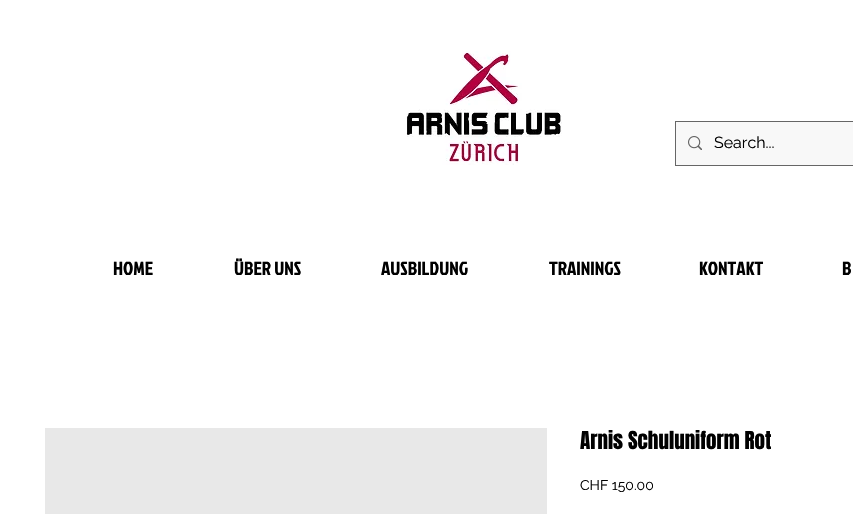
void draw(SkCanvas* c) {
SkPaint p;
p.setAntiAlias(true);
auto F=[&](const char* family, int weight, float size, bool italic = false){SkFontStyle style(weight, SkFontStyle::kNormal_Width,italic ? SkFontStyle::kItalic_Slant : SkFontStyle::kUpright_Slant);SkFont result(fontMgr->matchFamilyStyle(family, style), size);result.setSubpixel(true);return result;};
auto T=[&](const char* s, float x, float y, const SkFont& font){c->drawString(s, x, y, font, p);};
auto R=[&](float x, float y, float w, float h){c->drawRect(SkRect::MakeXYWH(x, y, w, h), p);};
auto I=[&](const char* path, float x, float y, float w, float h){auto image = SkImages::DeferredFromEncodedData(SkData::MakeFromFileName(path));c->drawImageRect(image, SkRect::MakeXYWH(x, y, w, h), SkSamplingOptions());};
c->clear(0xffffffff);
I("1.png",406,51,156,114);
p.setStroke(true);
p.setStrokeWidth(1);
p.setColor(0xff666666);
c->drawRect(SkRect::MakeXYWH(675.5,121.5,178,44),p);
p.setStroke(false);
p.setColor(0xfff8f8f8);
R(676,122,177,43);
I("2.png",688,136,14,14);
auto f1 = F("Raleway",400,16);
p.setColor(0xff000000);
T("Search...",714,148,f1);
auto f2 = F("Jockey One",400,19);
T("HOME",113,275,f2);
T("ÜBER UNS",234,275,f2);
T("AUSBILDUNG",381,275,f2);
T("TRAININGS",549,275,f2);
T("KONTAKT",699,275,f2);
T("B",842,275,f2);
p.setStroke(true);
p.setColor(0xffe8e8e8);
c->drawRect(SkRect::MakeXYWH(45.5,428.5,501,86),p);
p.setStroke(false);
R(46,429,500,85);
auto f3 = F("Anton",400,21);
p.setColor(0xff000000);
T("Arnis Schuluniform Rot",580,449,f3);
auto f4 = F("Raleway",400,14);
T("CHF 150.00",580,490,f4);
}
